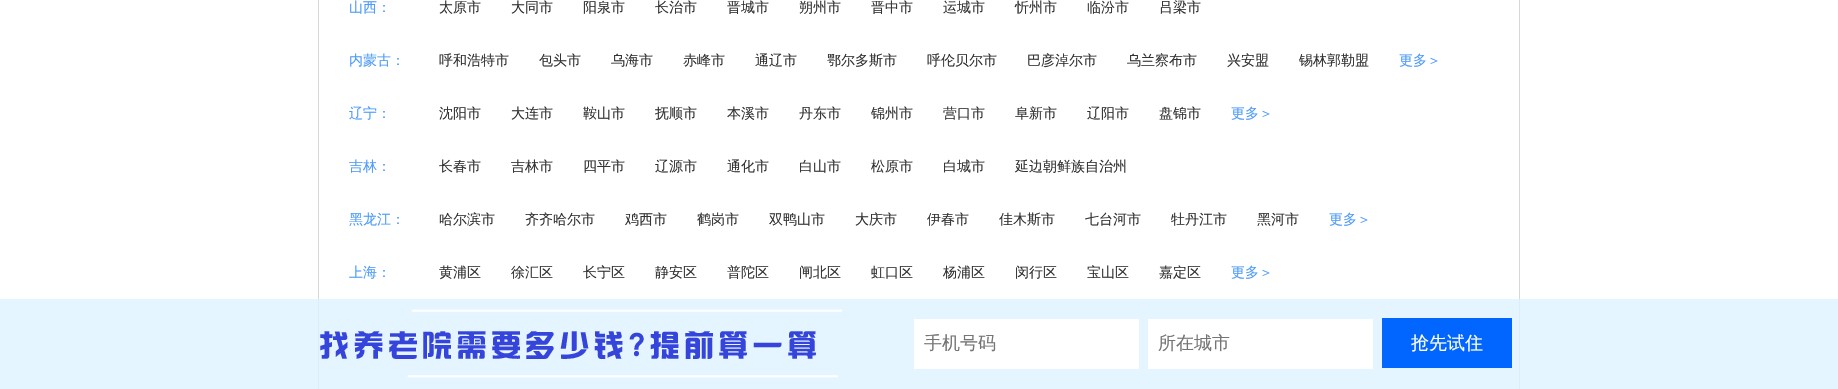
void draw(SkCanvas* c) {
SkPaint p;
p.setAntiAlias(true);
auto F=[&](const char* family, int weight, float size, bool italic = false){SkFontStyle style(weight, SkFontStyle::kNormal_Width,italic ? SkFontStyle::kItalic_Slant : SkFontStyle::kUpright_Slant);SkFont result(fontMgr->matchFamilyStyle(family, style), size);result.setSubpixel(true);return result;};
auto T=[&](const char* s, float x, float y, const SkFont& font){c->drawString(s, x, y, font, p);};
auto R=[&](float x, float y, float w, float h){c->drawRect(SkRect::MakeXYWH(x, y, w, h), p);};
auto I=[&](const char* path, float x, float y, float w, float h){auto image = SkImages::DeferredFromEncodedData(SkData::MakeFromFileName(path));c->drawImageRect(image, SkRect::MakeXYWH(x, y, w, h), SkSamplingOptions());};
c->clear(0xffffffff);
p.setStroke(true);
p.setStrokeWidth(1);
p.setColor(0xffd7d7d7);
c->drawRect(SkRect::MakeXYWH(318.5,-.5,1201,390),p);
auto f1 = F("WenQuanYi Zen Hei",500,14);
p.setStroke(false);
p.setColor(0xff4e9bfa);
T("山西：",349,12,f1);
p.setColor(0xff333333);
T("太原市",439,12,f1);
T("大同市",511,12,f1);
T("阳泉市",583,12,f1);
T("长治市",655,12,f1);
T("晋城市",727,12,f1);
T("朔州市",799,12,f1);
T("晋中市",871,12,f1);
T("运城市",943,12,f1);
T("忻州市",1015,12,f1);
T("临汾市",1087,12,f1);
T("吕梁市",1159,12,f1);
p.setColor(0xff4e9bfa);
T("内蒙古：",349,65,f1);
p.setColor(0xff333333);
T("呼和浩特市",439,65,f1);
T("包头市",539,65,f1);
T("乌海市",611,65,f1);
T("赤峰市",683,65,f1);
T("通辽市",755,65,f1);
T("鄂尔多斯市",827,65,f1);
T("呼伦贝尔市",927,65,f1);
T("巴彦淖尔市",1027,65,f1);
T("乌兰察布市",1127,65,f1);
T("兴安盟",1227,65,f1);
T("锡林郭勒盟",1299,65,f1);
p.setColor(0xff4e9bfa);
T("更多＞",1399,65,f1);
T("辽宁：",349,118,f1);
p.setColor(0xff333333);
T("沈阳市",439,118,f1);
T("大连市",511,118,f1);
T("鞍山市",583,118,f1);
T("抚顺市",655,118,f1);
T("本溪市",727,118,f1);
T("丹东市",799,118,f1);
T("锦州市",871,118,f1);
T("营口市",943,118,f1);
T("阜新市",1015,118,f1);
T("辽阳市",1087,118,f1);
T("盘锦市",1159,118,f1);
p.setColor(0xff4e9bfa);
T("更多＞",1231,118,f1);
T("吉林：",349,171,f1);
p.setColor(0xff333333);
T("长春市",439,171,f1);
T("吉林市",511,171,f1);
T("四平市",583,171,f1);
T("辽源市",655,171,f1);
T("通化市",727,171,f1);
T("白山市",799,171,f1);
T("松原市",871,171,f1);
T("白城市",943,171,f1);
T("延边朝鲜族自治州",1015,171,f1);
p.setColor(0xff4e9bfa);
T("黑龙江：",349,224,f1);
p.setColor(0xff333333);
T("哈尔滨市",439,224,f1);
T("齐齐哈尔市",525,224,f1);
T("鸡西市",625,224,f1);
T("鹤岗市",697,224,f1);
T("双鸭山市",769,224,f1);
T("大庆市",855,224,f1);
T("伊春市",927,224,f1);
T("佳木斯市",999,224,f1);
T("七台河市",1085,224,f1);
T("牡丹江市",1171,224,f1);
T("黑河市",1257,224,f1);
p.setColor(0xff4e9bfa);
T("更多＞",1329,224,f1);
T("上海：",349,277,f1);
p.setColor(0xff333333);
T("黄浦区",439,277,f1);
T("徐汇区",511,277,f1);
T("长宁区",583,277,f1);
T("静安区",655,277,f1);
T("普陀区",727,277,f1);
T("闸北区",799,277,f1);
T("虹口区",871,277,f1);
T("杨浦区",943,277,f1);
T("闵行区",1015,277,f1);
T("宝山区",1087,277,f1);
T("嘉定区",1159,277,f1);
p.setColor(0xff4e9bfa);
T("更多＞",1231,277,f1);
p.setColor(0xccdff2ff);
R(0,299,1838,90);
I("1.png",320,309,522,69);
p.setColor(0xffffffff);
R(914,319,225,50);
auto f2 = F("WenQuanYi Zen Hei",500,18);
p.setColor(0xff757575);
T("手机号码",924,349,f2);
p.setColor(0xffffffff);
R(1148,319,225,50);
p.setColor(0xff757575);
T("所在城市",1158,349,f2);
p.setColor(0xff0066ff);
R(1382,318,130,50);
p.setColor(0xffffffff);
T("抢先试住",1411,349,f2);
}
